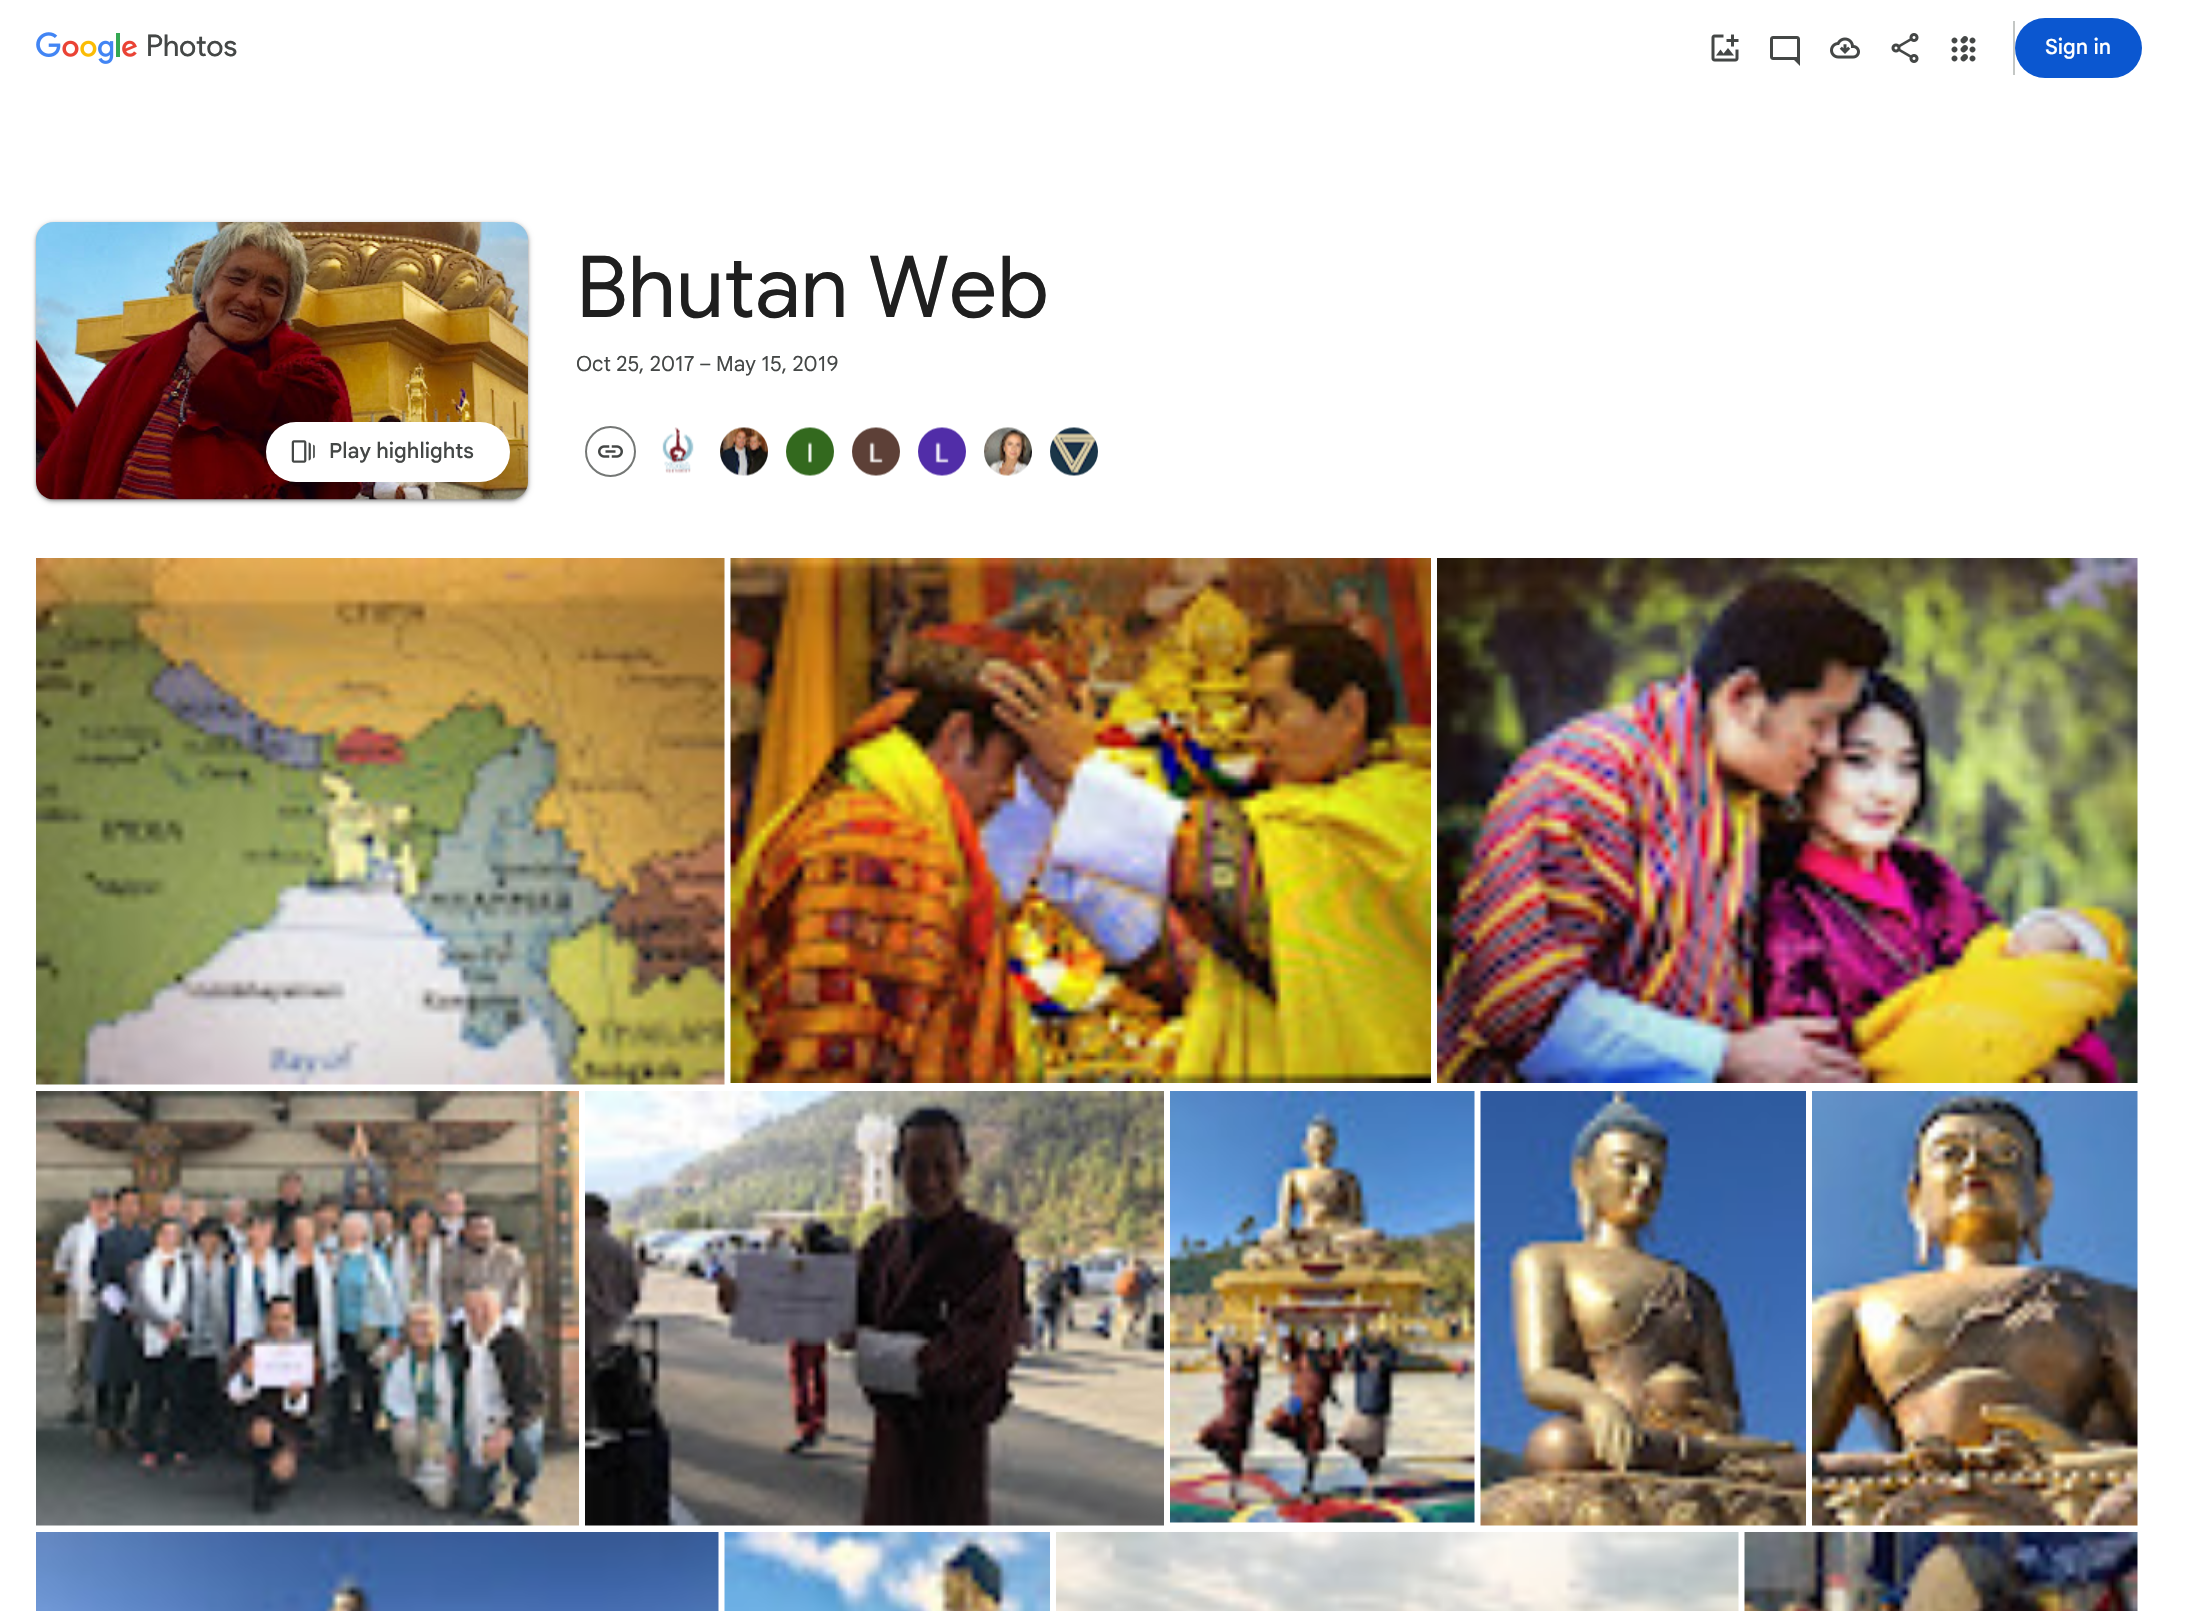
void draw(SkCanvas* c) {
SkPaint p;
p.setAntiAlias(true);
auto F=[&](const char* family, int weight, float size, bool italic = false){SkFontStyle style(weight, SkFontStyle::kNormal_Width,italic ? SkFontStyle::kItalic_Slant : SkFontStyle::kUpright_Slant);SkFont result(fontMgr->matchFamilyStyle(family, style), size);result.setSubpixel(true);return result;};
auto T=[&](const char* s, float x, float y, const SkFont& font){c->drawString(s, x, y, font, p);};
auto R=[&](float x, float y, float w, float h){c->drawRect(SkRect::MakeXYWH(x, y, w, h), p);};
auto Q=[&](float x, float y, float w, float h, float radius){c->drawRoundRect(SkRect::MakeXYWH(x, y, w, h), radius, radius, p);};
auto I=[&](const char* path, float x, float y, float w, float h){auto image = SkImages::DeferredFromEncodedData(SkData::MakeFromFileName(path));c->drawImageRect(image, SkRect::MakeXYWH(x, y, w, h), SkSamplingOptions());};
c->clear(0xffffffff);
I("1.png",36,32,101,32);
auto f1 = F("Product Sans",400,30);
p.setColor(0xff444746);
T("Photos",146,56,f1);
I("2.png",1711,34,28,28);
I("3.png",1770,36,30,30);
I("4.png",1830,37,30,22);
I("5.png",1891,33,28,30);
I("6.png",1962,36,6,24);
p.setColor(0xffc4c7c5);
R(2013,21,2,54);
auto f2 = F("Google Sans",400,85.5);
p.setColor(0xff1f1f1f);
T("Bhutan Web",576,317,f2);
auto f3 = F("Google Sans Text",400,21);
p.setColor(0xff444746);
T("Oct 25, 2017 – May 15, 2019",576,371,f3);
p.setStroke(true);
p.setStrokeWidth(2);
p.setColor(0xff747775);
c->drawCircle(610.5,451.5,24.5,p);
I("7.png",598,445,25,13);
I("8.png",662,427,32,47);
I("9.png",720,427,48,49);
I("10.png",786,427,48,49);
I("11.png",852,427,48,49);
I("12.png",918,427,48,49);
I("13.png",984,427,48,49);
I("14.png",1050,427,48,49);
p.setStroke(false);
p.setColor(0xfff8fafd);
Q(36,222,492,278,18);
p.setColor(0x26000000);
p.setMaskFilter(SkMaskFilter::MakeBlur(kNormal_SkBlurStyle, 2));
c->drawRoundRect(SkRect::MakeXYWH(35,222,495,281),20,20,p);
p.setMaskFilter(nullptr);
p.setColor(0x4d000000);
p.setMaskFilter(SkMaskFilter::MakeBlur(kNormal_SkBlurStyle, 1.5));
c->drawRoundRect(SkRect::MakeXYWH(36,224,492,277),18,18,p);
p.setMaskFilter(nullptr);
I("15.png",36,222,492,278);
p.setColor(0xffffffff);
Q(266,422,244,60,30);
I("16.png",291,440,24,23);
auto f4 = F("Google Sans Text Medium",500,21);
p.setColor(0xff444746);
T("Play highlights",329,458,f4);
I("17.png",36,558,689,527);
I("18.png",730,558,701,525);
I("19.png",1437,558,701,525);
I("20.png",36,1091,543,435);
I("21.png",585,1091,579,435);
I("22.png",1170,1091,305,432);
I("23.png",1480,1091,326,435);
I("24.png",1812,1091,326,435);
I("25.png",36,1532,683,79);
I("26.png",724,1532,326,79);
I("27.png",1056,1532,683,79);
I("28.png",1744,1532,394,79);
I("29.png",1951,37,25,25);
p.setColor(0xff0b57d0);
Q(2015,18,127,60,30);
p.setColor(0xffffffff);
T("Sign in",2045,54,f4);
}
